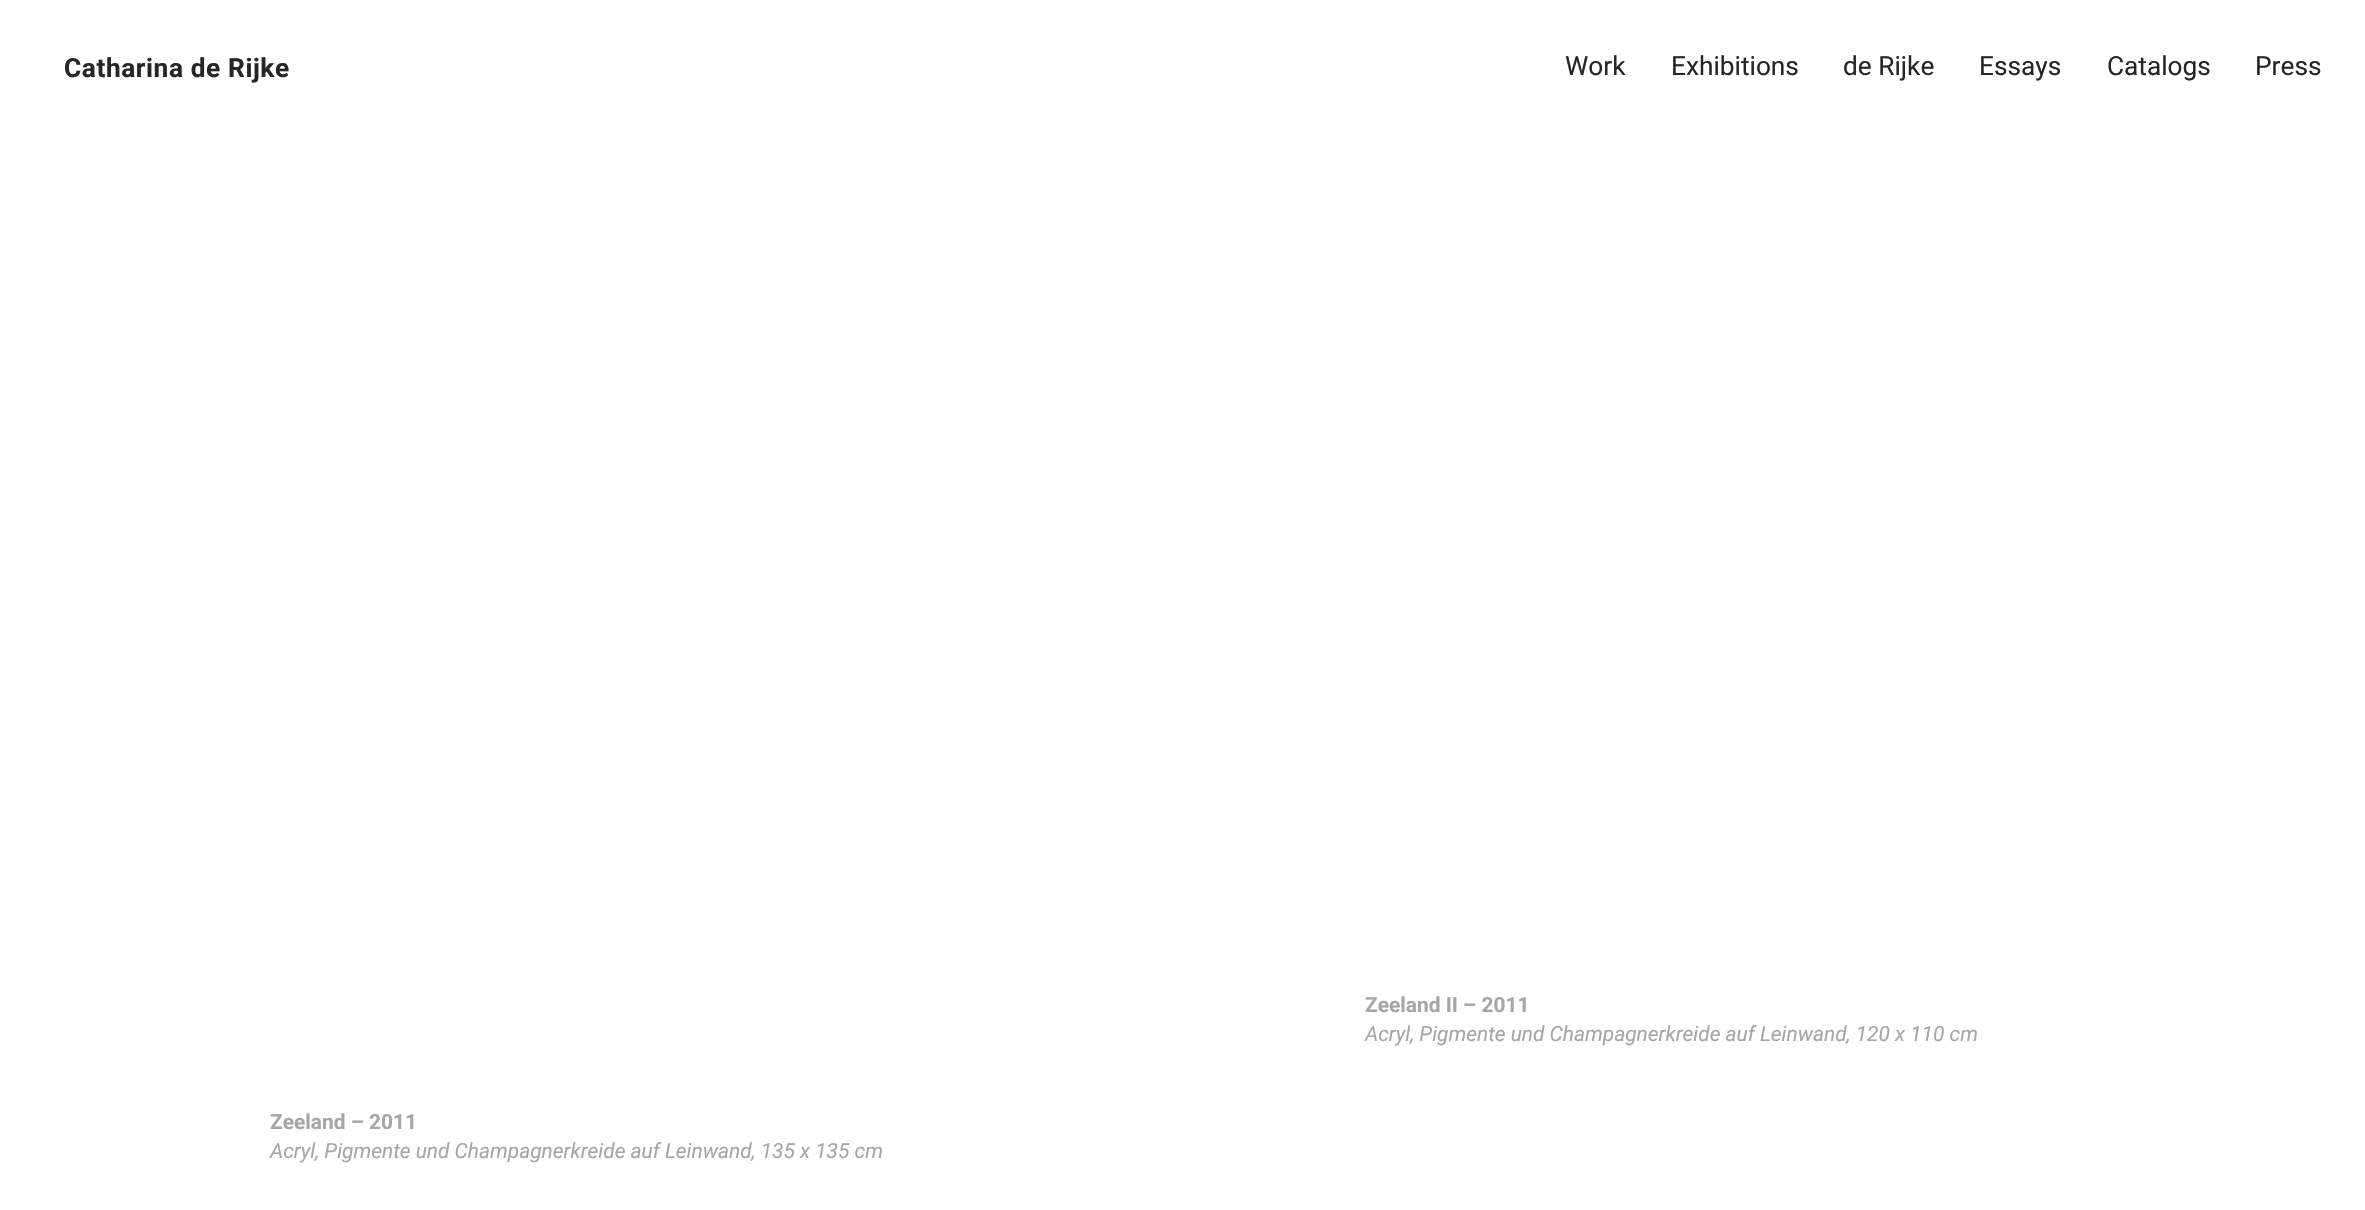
void draw(SkCanvas* c) {
SkPaint p;
p.setAntiAlias(true);
auto F=[&](const char* family, int weight, float size, bool italic = false){SkFontStyle style(weight, SkFontStyle::kNormal_Width,italic ? SkFontStyle::kItalic_Slant : SkFontStyle::kUpright_Slant);SkFont result(fontMgr->matchFamilyStyle(family, style), size);result.setSubpixel(true);return result;};
auto T=[&](const char* s, float x, float y, const SkFont& font){c->drawString(s, x, y, font, p);};
auto L=[&](const char* s, float x, float y, const SkFont& font, const SkPaint& ink, float letter, float word){std::vector<SkGlyphID> glyphs(font.countText(s, strlen(s), SkTextEncoding::kUTF8));std::vector<float> xs(glyphs.size());font.textToGlyphs(s, strlen(s), SkTextEncoding::kUTF8, glyphs);font.getXPos(glyphs, xs, x);float extra = 0;for (size_t i = 0; i < glyphs.size(); i++) {xs[i] += extra;extra += letter + word * (glyphs[i] == font.unicharToGlyph(' '));}c->drawTextBlob(SkTextBlob::MakeFromPosHGlyphs(glyphs, xs, y, font), 0, 0, ink);};
c->clear(0xffffffff);
auto f1 = F("Roboto",700,26.25);
p.setColor(0xff262626);
L("Catharina de Rijke",64,77,f1,p,.6,0);
auto f2 = F("Roboto",400,26.25);
T("Work",1565,75,f2);
T("Exhibitions",1671,75,f2);
T("de Rijke",1843,75,f2);
T("Essays",1979,75,f2);
T("Catalogs",2107,75,f2);
T("Press",2255,75,f2);
auto f3 = F("Roboto",700,20.9);
p.setColor(0xffa6a6a6);
T("Zeeland II – 2011",1365,1012,f3);
auto f4 = F("Roboto",400,20.9,true);
T("Acryl, Pigmente und Champagnerkreide auf Leinwand, 120 x 110 cm",1365,1041,f4);
T("Zeeland – 2011",270,1129,f3);
T("Acryl, Pigmente und Champagnerkreide auf Leinwand, 135 x 135 cm",270,1158,f4);
}
